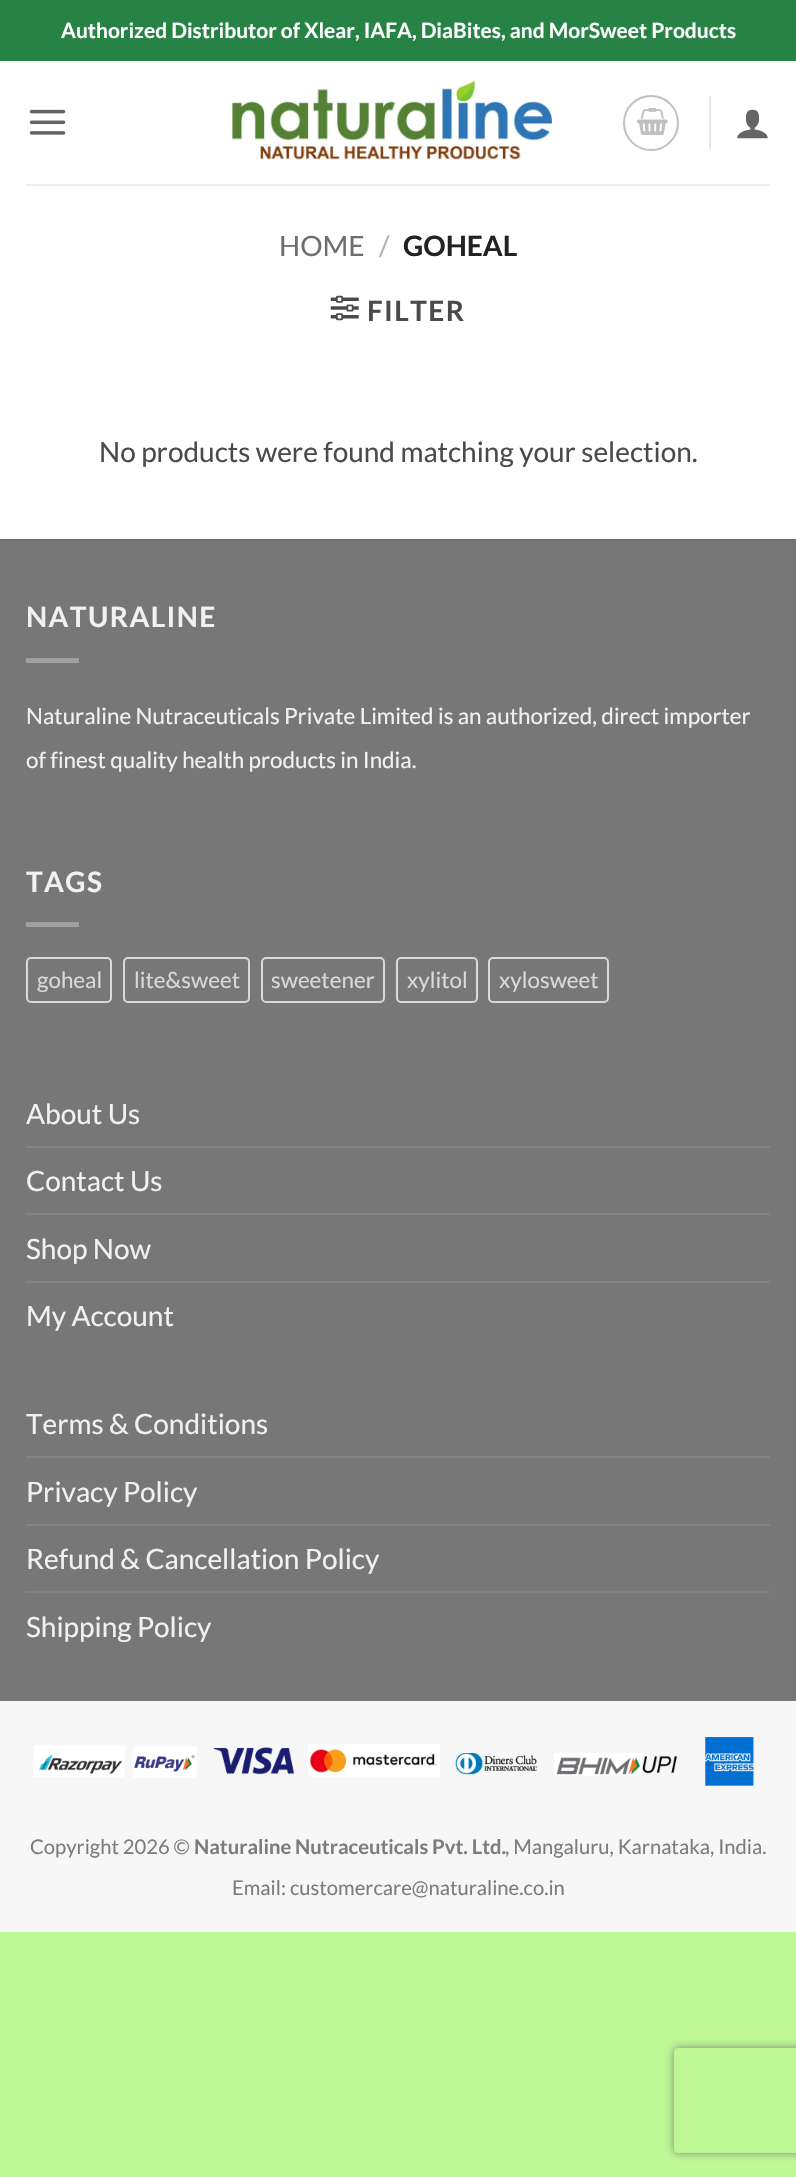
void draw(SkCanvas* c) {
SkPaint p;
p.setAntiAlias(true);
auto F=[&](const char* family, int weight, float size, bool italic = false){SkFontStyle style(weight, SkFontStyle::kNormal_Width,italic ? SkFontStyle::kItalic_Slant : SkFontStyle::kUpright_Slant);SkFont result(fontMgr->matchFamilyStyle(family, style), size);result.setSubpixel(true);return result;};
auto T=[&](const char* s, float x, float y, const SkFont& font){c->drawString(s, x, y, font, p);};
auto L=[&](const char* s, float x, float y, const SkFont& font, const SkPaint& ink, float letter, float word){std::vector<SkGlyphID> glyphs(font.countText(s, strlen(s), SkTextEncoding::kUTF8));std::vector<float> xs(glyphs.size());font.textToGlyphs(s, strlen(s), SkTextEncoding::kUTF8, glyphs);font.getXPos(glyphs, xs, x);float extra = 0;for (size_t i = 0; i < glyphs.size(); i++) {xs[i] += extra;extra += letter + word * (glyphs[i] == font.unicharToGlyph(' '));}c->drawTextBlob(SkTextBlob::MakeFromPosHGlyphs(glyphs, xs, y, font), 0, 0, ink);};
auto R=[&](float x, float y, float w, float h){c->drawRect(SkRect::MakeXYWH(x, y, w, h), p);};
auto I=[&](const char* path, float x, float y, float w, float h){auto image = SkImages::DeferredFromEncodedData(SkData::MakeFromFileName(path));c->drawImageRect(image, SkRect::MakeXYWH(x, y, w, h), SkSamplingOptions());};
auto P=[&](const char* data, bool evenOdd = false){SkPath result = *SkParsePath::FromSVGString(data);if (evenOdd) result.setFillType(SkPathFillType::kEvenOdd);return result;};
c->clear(0xffbef894);
p.setColor(0xffffffff);
R(0,61,796,478);
p.setColor(0xff278245);
R(0,0,796,61);
auto f1 = F("Lato",700,21);
p.setColor(0xffffffff);
T("Authorized Distributor of Xlear, IAFA, DiaBites, and MorSweet Products",61,38,f1);
I("1.png",29,109,37,26);
I("2.png",231,79,323,81);
p.setStroke(true);
p.setStrokeWidth(2);
p.setColor(0xffc0c0c0);
c->drawCircle(651,123,27,p);
I("3.png",637,108,31,27);
p.setStroke(false);
p.setColor(0xffe6e6e6);
R(709,96,2,53);
I("4.png",737,109,31,30);
p.setColor(0xffededed);
R(26,184,744,2);
auto f2 = F("Lato",400,28);
p.setColor(0xff6e6e6e);
T("HOME",279,256,f2);
p.setColor(0xffb2b2b2);
T("/",379,256,f2);
auto f3 = F("Lato",700,28);
p.setColor(0xff222222);
T("GOHEAL",403,256,f3);
I("5.png",330,295,29,26);
p.setColor(0xff4a4a4a);
L("FILTER",367,321,f3,p,1.4,0);
T("No products were found matching your selection.",99,462,f2);
p.setColor(0xff777777);
R(0,541,796,1160);
p.setColor(0xff717171);
R(0,539,796,2);
p.setColor(0xfff1f1f1);
L("NATURALINE",26,627,f3,p,1.4,0);
p.setColor(0xffa0a0a0);
R(26,658,53,5);
auto f4 = F("Lato",400,22.4);
p.setColor(0xfff1f1f1);
T("Naturaline Nutraceuticals Private Limited is an authorized, direct importer",26,724,f4);
T("of finest quality health products in India.",26,768,f4);
L("TAGS",26,892,f3,p,1.4,0);
p.setColor(0xffa0a0a0);
R(26,922,53,5);
p.setStroke(true);
p.setColor(0xffd9d9d9);
c->drawRoundRect(SkRect::MakeXYWH(27,958,84,44),4,4,p);
p.setStroke(false);
T("goheal",37,988,f4);
p.setStroke(true);
c->drawRoundRect(SkRect::MakeXYWH(124,958,125,44),4,4,p);
p.setStroke(false);
T("lite&sweet",134,988,f4);
p.setStroke(true);
c->drawRoundRect(SkRect::MakeXYWH(262,958,122,44),4,4,p);
p.setStroke(false);
T("sweetener",271,988,f4);
p.setStroke(true);
c->drawRoundRect(SkRect::MakeXYWH(397,958,80,44),4,4,p);
p.setStroke(false);
T("xylitol",407,988,f4);
p.setStroke(true);
c->drawRoundRect(SkRect::MakeXYWH(489,958,119,44),4,4,p);
p.setStroke(false);
T("xylosweet",499,988,f4);
p.setColor(0xfff1f1f1);
T("About Us",26,1124,f2);
p.setColor(0xff828282);
R(26,1146,744,2);
p.setColor(0xfff1f1f1);
T("Contact Us",26,1191,f2);
p.setColor(0xff828282);
R(26,1213,744,2);
p.setColor(0xfff1f1f1);
T("Shop Now",26,1259,f2);
p.setColor(0xff828282);
R(26,1281,744,2);
p.setColor(0xfff1f1f1);
T("My Account",26,1326,f2);
T("Terms & Conditions",26,1434,f2);
p.setColor(0xff828282);
R(26,1456,744,2);
p.setColor(0xfff1f1f1);
T("Privacy Policy",26,1502,f2);
p.setColor(0xff828282);
R(26,1524,744,2);
p.setColor(0xfff1f1f1);
T("Refund & Cancellation Policy",26,1569,f2);
p.setColor(0xff828282);
R(26,1591,744,2);
p.setColor(0xfff1f1f1);
T("Shipping Policy",26,1637,f2);
p.setColor(0xfff7f7f7);
R(0,1701,796,231);
I("6.png",34,1737,720,49);
auto f5 = F("Lato",400,20.2);
p.setColor(0xff7c7c7c);
T("Copyright 2026 ©",30,1854,f5);
auto f6 = F("Lato",700,20.2);
T("Naturaline Nutraceuticals Pvt. Ltd.",194,1854,f6);
T(", Mangaluru, Karnataka, India.",505,1854,f5);
T("Email: customercare@naturaline.co.in",232,1895,f5);
c->save();
c->clipPath(P("M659 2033h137v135h-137zm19 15h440c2 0 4 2 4 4v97c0 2-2 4-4 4h-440c-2 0-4-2-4-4v-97c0-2 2-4 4-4z",true),true);
p.setColor(0xff808080);
p.setMaskFilter(SkMaskFilter::MakeBlur(kNormal_SkBlurStyle, 4.5));
c->drawRoundRect(SkRect::MakeXYWH(674,2048,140,105),4,4,p);
p.setMaskFilter(nullptr);
c->restore();
}
